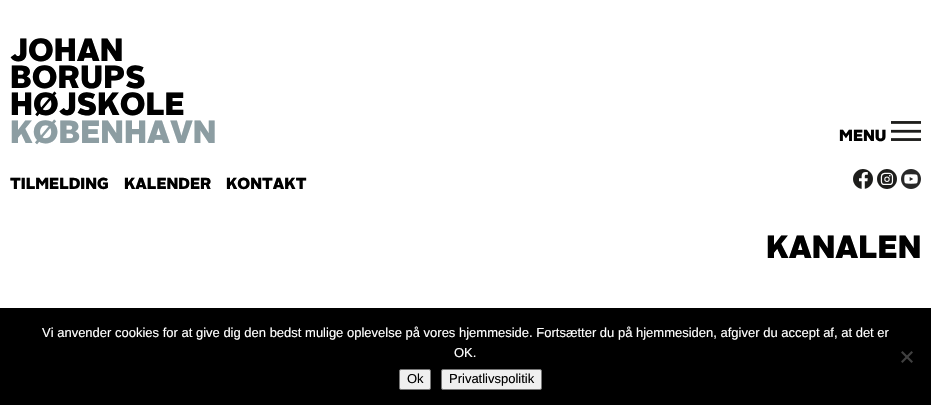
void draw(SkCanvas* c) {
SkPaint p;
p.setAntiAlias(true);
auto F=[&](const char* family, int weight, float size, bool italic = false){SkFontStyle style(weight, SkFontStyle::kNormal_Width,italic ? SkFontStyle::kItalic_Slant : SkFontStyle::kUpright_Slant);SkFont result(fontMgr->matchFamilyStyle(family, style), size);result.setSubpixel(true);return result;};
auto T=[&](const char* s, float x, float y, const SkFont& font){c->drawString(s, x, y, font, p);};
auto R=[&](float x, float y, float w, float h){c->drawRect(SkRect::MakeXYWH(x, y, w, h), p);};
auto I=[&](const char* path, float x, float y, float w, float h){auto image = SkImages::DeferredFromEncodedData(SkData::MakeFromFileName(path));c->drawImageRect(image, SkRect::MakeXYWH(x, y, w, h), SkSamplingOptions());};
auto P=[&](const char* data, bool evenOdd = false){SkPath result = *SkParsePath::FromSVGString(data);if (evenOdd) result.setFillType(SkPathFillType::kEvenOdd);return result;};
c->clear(0xffffffff);
auto f1 = F("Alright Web",400,32);
p.setColor(0xff000000);
T("JOHAN",10,61,f1);
T("BORUPS",10,88,f1);
T("HØJSKOLE",10,115,f1);
p.setColor(0xff8c9da2);
T("KØBENHAVN",10,143,f1);
auto f2 = F("Alright Web",400,16);
p.setColor(0xff000000);
T("MENU",839,141,f2);
I("1.png",891,121,30,20);
T("TILMELDING",10,189,f2);
T("KALENDER",124,189,f2);
T("KONTAKT",226,189,f2);
I("2.png",853,169,20,20);
I("3.png",877,169,20,20);
I("4.png",901,169,20,20);
T("KANALEN",766,258,f1);
R(0,308,931,97);
auto f3 = F("Liberation Sans",400,13);
p.setColor(0xffffffff);
T("Vi anvender cookies for at give dig den bedst mulige oplevelse på vores hjemmeside. Fortsætter du på hjemmesiden, afgiver du accept af, at det er",42,337,f3);
T("OK.",454,357,f3);
p.setColor(0xff404040);
c->drawPath(P("M911.5 351l1.5 1.5l-10.5 10.5l-1.5-1.5z"),p);
c->drawPath(P("M901 352.5l1.5-1.5l10.5 10.5l-1.5 1.5z"),p);
p.setColor(0xffefefef);
c->drawRoundRect(SkRect::MakeXYWH(399.5,369.5,31,20),1.5,1.5,p);
p.setStroke(true);
p.setStrokeWidth(1);
p.setColor(0xff767676);
c->drawRoundRect(SkRect::MakeXYWH(399.5,369.5,31,20),1.5,1.5,p);
p.setStroke(false);
p.setColor(0xff000000);
T("Ok",407,383,f3);
p.setColor(0xffefefef);
c->drawRoundRect(SkRect::MakeXYWH(441.5,369.5,100,20),1.5,1.5,p);
p.setStroke(true);
p.setColor(0xff767676);
c->drawRoundRect(SkRect::MakeXYWH(441.5,369.5,100,20),1.5,1.5,p);
p.setStroke(false);
p.setColor(0xff000000);
T("Privatlivspolitik",449,383,f3);
}
